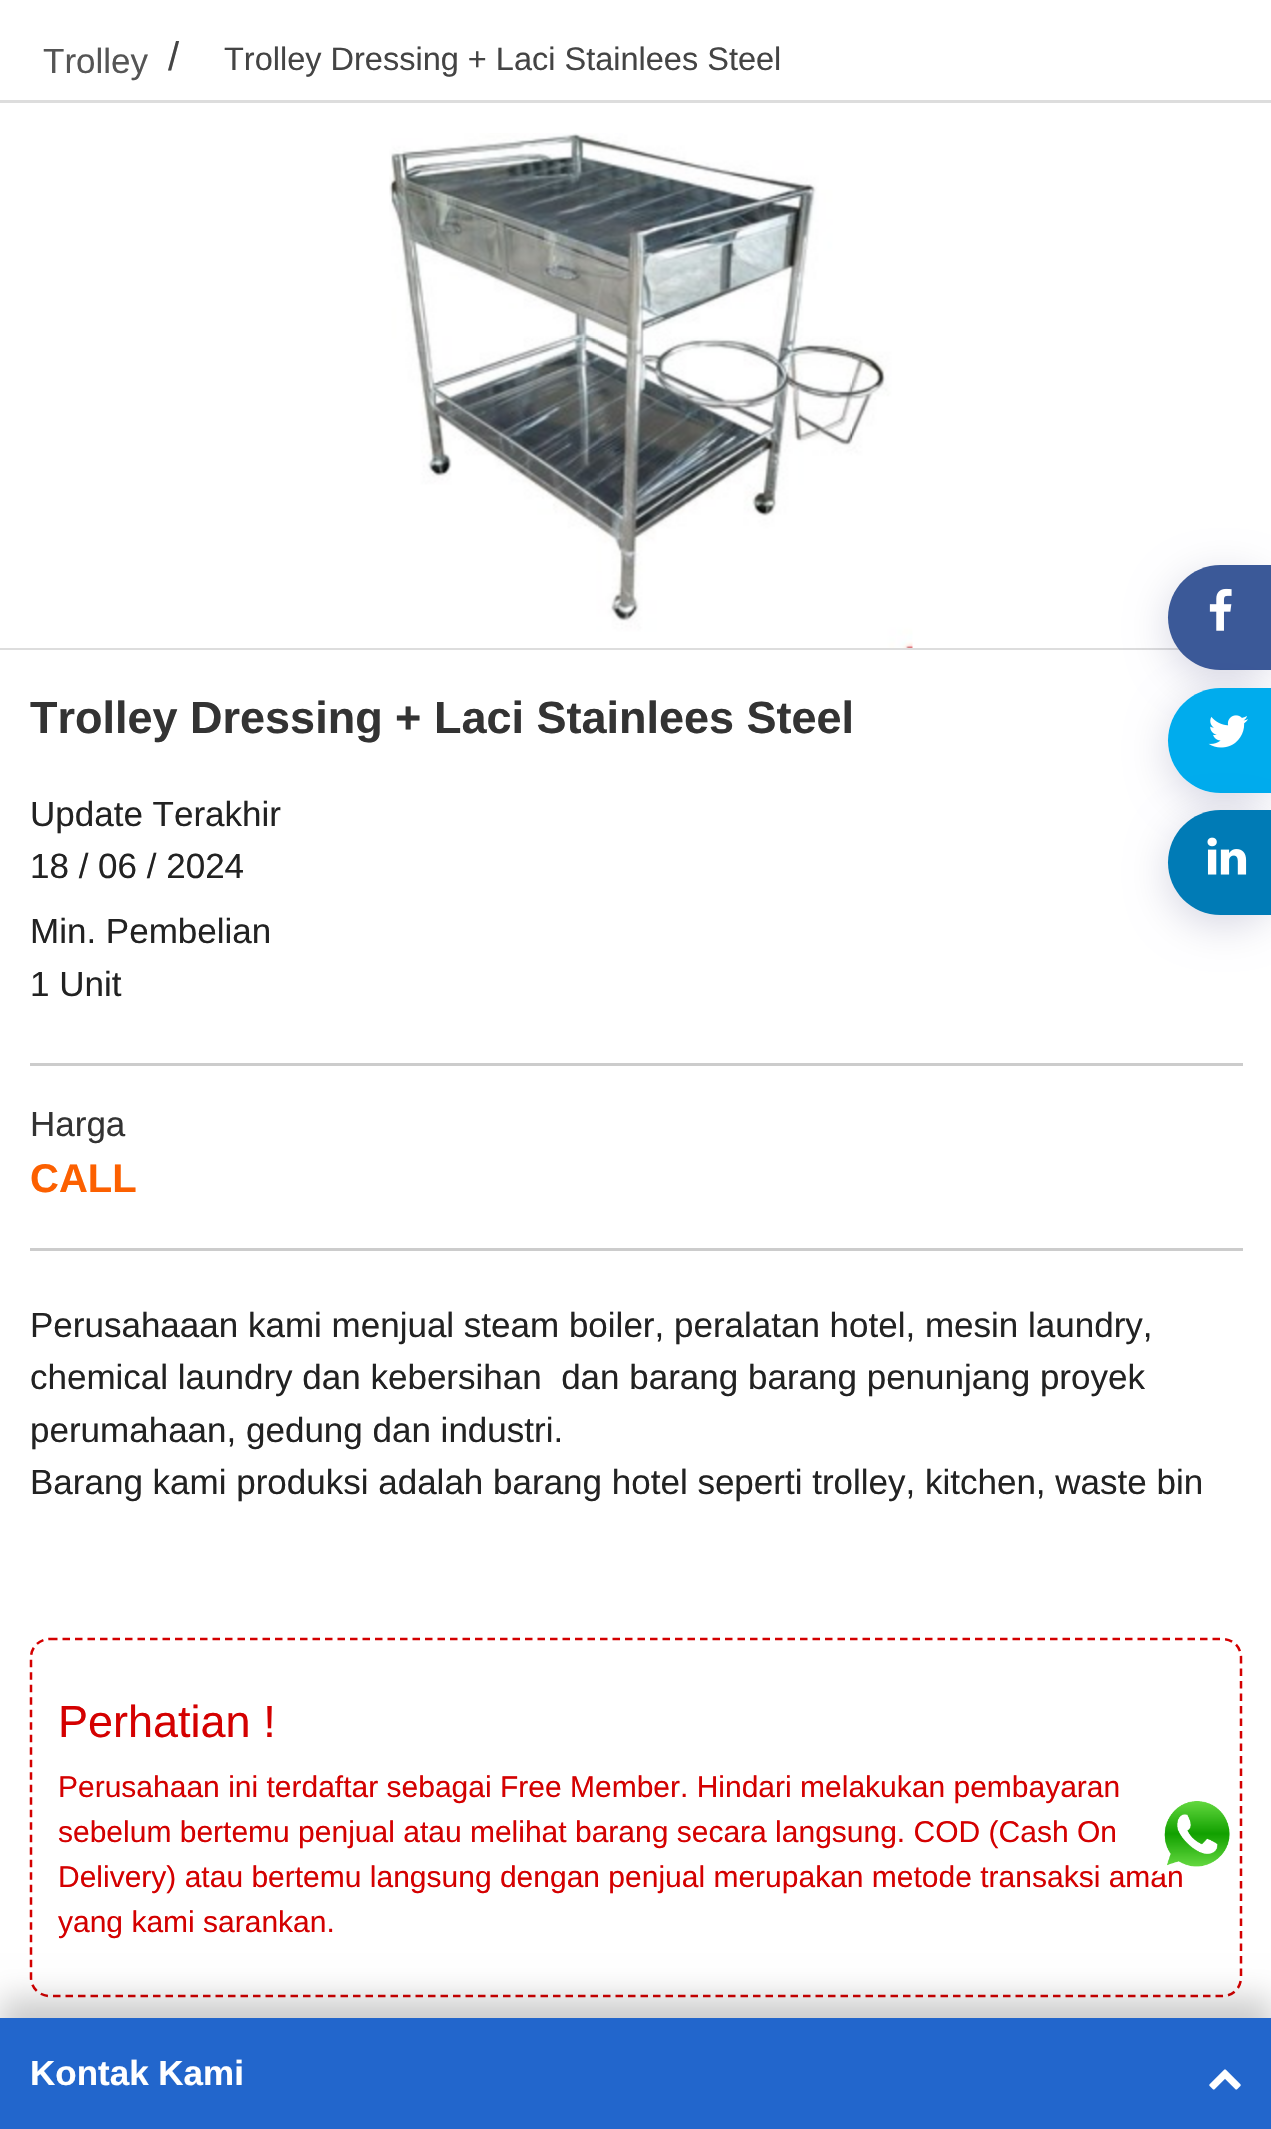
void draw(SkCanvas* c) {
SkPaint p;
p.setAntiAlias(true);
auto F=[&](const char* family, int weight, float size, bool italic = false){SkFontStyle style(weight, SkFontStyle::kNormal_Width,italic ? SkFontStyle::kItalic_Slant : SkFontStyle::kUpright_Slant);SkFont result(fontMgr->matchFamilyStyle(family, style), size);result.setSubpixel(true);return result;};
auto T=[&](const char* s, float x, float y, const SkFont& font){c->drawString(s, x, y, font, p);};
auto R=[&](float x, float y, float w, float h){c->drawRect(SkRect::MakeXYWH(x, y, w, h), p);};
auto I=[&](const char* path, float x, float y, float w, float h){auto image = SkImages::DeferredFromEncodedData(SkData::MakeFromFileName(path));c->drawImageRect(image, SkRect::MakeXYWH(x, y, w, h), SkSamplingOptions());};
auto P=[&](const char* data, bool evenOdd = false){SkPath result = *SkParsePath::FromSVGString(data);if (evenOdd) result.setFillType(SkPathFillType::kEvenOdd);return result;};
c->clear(0xffffffff);
auto f1 = F("Liberation Sans",400,35);
p.setColor(0xff555555);
T("Trolley",43,73,f1);
auto f2 = F("Liberation Sans",400,40);
p.setColor(0xff444444);
T("/",168,70,f2);
auto f3 = F("Liberation Sans",400,32.5);
T("Trolley Dressing + Laci Stainlees Steel",224,70,f3);
p.setColor(0xffdddddd);
R(0,648,1180,2);
p.setColor(0x2900004b);
p.setMaskFilter(SkMaskFilter::MakeBlur(kNormal_SkBlurStyle, 20));
c->drawRoundRect(SkRect::MakeXYWH(1168,575,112,105),52.5,52.5,p);
p.setMaskFilter(nullptr);
p.setColor(0xff3b5998);
c->drawPath(P("M1220.5 565h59.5v105h-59.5c-29 0-52.5-23.5-52.5-52.5c0-29 23.5-52.5 52.5-52.5z"),p);
I("1.png",1209,588,23,43);
c->save();
c->clipPath(P("M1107 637h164v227h-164zm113.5 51h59.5v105h-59.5c-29 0-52.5-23.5-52.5-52.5c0-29 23.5-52.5 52.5-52.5z",true),true);
p.setColor(0x2900004b);
p.setMaskFilter(SkMaskFilter::MakeBlur(kNormal_SkBlurStyle, 20));
c->drawRoundRect(SkRect::MakeXYWH(1168,698,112,105),52.5,52.5,p);
p.setMaskFilter(nullptr);
c->restore();
p.setColor(0xff00aced);
c->drawPath(P("M1220.5 688h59.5v105h-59.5c-29 0-52.5-23.5-52.5-52.5c0-29 23.5-52.5 52.5-52.5z"),p);
I("2.png",1208,715,40,33);
p.setColor(0x2900004b);
p.setMaskFilter(SkMaskFilter::MakeBlur(kNormal_SkBlurStyle, 20));
c->drawRoundRect(SkRect::MakeXYWH(1168,820,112,105),52.5,52.5,p);
p.setMaskFilter(nullptr);
p.setColor(0xff007bb6);
c->drawPath(P("M1220.5 810h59.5v105h-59.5c-29 0-52.5-23.5-52.5-52.5c0-29 23.5-52.5 52.5-52.5z"),p);
I("3.png",1207,837,40,38);
p.setColor(0xffdddddd);
R(0,100,1271,3);
I("4.png",389,133,524,515);
p.setColor(0xffcccccc);
R(30,1063,1213,3);
auto f4 = F("Liberation Sans",700,45);
p.setColor(0xff333333);
T("Trolley Dressing + Laci Stainlees Steel",30,733,f4);
p.setColor(0xff222222);
T("Update Terakhir",30,826,f1);
T("18 / 06 / 2024",30,878,f1);
T("Min. Pembelian",30,943,f1);
T("1 Unit",30,996,f1);
p.setColor(0xff333333);
T("Harga",30,1136,f1);
auto f5 = F("Liberation Sans",700,40);
p.setColor(0xfffc6000);
T("CALL",30,1192,f5);
p.setColor(0xffcccccc);
R(30,1248,1213,3);
p.setColor(0xff222222);
T("Perusahaaan kami menjual steam boiler, peralatan hotel, mesin laundry,",30,1337,f1);
T("chemical laundry dan kebersihan  dan barang barang penunjang proyek",30,1389,f1);
T("perumahaan, gedung dan industri.",30,1442,f1);
T("Barang kami produksi adalah barang hotel seperti trolley, kitchen, waste bin",30,1494,f1);
p.setStroke(true);
p.setStrokeWidth(2.5);
p.setColor(0xffd40000);
p.setPathEffect(SkDashPathEffect::Make({{7.5f,5}}, 0));
c->drawPath(P("M50 1639h1172.5c10.5 0 18.5 8 18.5 18.5v320c0 10.5-8 18.5-18.5 18.5h-1172.5c-10.5 0-19-8-19-18.5v-320c0-10.5 8.5-18.5 19-18.5z"),p);
p.setPathEffect(nullptr);
auto f6 = F("Liberation Sans",400,45);
p.setStroke(false);
T("Perhatian !",58,1737,f6);
auto f7 = F("Liberation Sans",400,30);
T("Perusahaan ini terdaftar sebagai Free Member. Hindari melakukan pembayaran",58,1797,f7);
T("sebelum bertemu penjual atau melihat barang secara langsung. COD (Cash On",58,1842,f7);
T("Delivery) atau bertemu langsung dengan penjual merupakan metode transaksi aman",58,1887,f7);
T("yang kami sarankan.",58,1932,f7);
I("5.png",1157,1801,73,74);
p.setColor(0x33000000);
p.setMaskFilter(SkMaskFilter::MakeBlur(kNormal_SkBlurStyle, 15));
c->drawRect(SkRect::MakeXYWH(0,1998,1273,112),p);
p.setMaskFilter(nullptr);
p.setColor(0xff2266cc);
R(0,2018,1271,111);
auto f8 = F("Liberation Sans",700,35);
p.setColor(0xffffffff);
T("Kontak Kami",30,2085,f8);
I("6.png",1209,2069,32,21);
}
